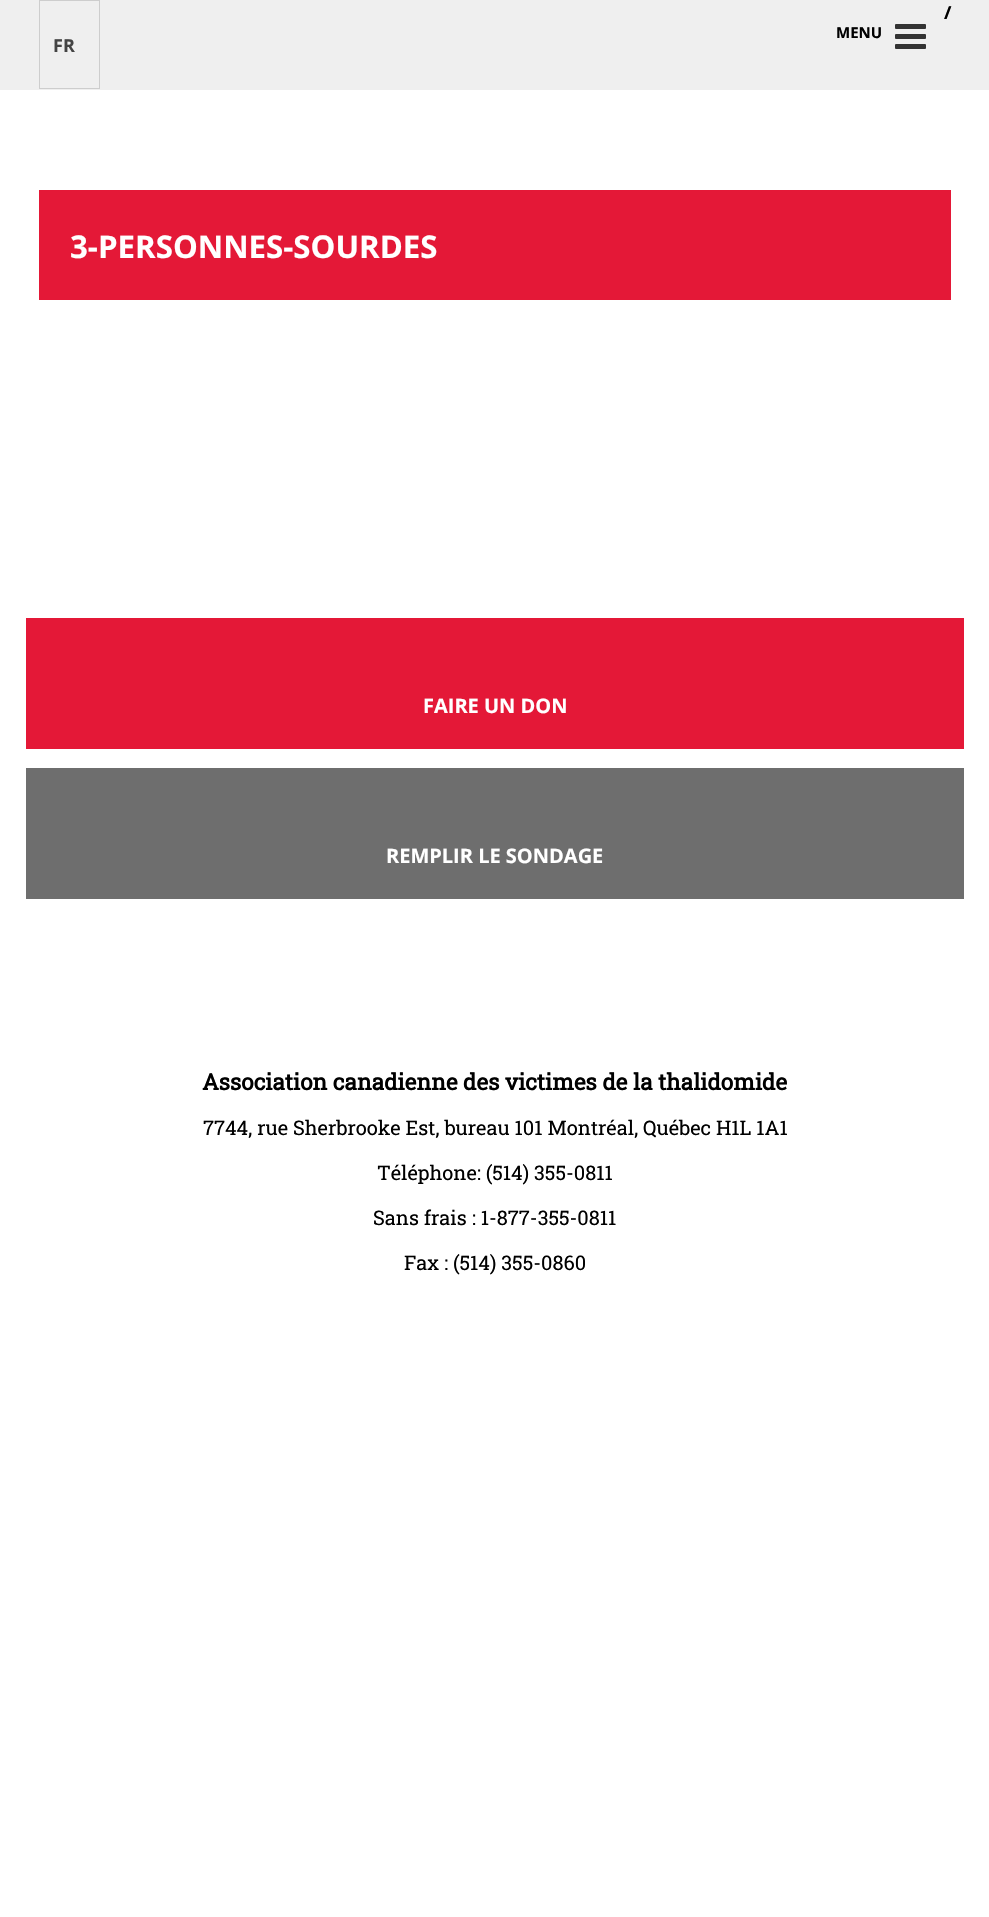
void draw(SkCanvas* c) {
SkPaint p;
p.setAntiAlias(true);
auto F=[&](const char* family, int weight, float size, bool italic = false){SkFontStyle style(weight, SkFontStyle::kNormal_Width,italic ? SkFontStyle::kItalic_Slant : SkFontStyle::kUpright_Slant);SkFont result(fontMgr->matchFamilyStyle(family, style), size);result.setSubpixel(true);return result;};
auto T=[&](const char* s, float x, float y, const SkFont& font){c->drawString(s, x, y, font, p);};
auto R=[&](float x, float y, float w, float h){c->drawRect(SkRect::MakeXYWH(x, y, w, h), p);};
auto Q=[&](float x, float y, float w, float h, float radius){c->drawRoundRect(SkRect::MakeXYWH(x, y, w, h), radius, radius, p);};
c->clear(0xffffffff);
p.setColor(0xffefefef);
R(0,0,989,90);
p.setStroke(true);
p.setStrokeWidth(1);
p.setColor(0xffcdcdcd);
c->drawRect(SkRect::MakeXYWH(39.5,.5,60,88),p);
auto f1 = F("Open Sans",700,18);
p.setStroke(false);
p.setColor(0xff000000);
T("/",944,19,f1);
p.setColor(0xff444444);
T("FR",53,52,f1);
auto f2 = F("Open Sans",700,15);
p.setColor(0xff000000);
T("MENU",836,38,f2);
p.setColor(0xff333333);
Q(895,34,31,5,1);
Q(895,24,31,5,1);
Q(895,44,31,5,1);
p.setColor(0xffe41837);
R(39,190,912,110);
auto f3 = F("Open Sans",700,31.25);
p.setColor(0xffffffff);
T("3-PERSONNES-SOURDES",70,258,f3);
p.setColor(0xffe41837);
R(26,618,938,131);
auto f4 = F("Open Sans",700,20);
p.setColor(0xffffffff);
T("FAIRE UN DON",423,713,f4);
p.setColor(0xff6e6e6e);
R(26,768,938,131);
p.setColor(0xffffffff);
T("REMPLIR LE SONDAGE",386,863,f4);
auto f5 = F("Roboto Slab",700,22.5);
p.setColor(0xff000000);
T("Association canadienne des victimes de la thalidomide",202,1090,f5);
auto f6 = F("Roboto Slab",400,20);
T("7744, rue Sherbrooke Est, bureau 101 Montréal, Québec H1L 1A1",203,1135,f6);
T("Téléphone: (514) 355-0811",377,1180,f6);
T("Sans frais : 1-877-355-0811",373,1225,f6);
T("Fax : (514) 355-0860",404,1270,f6);
}
